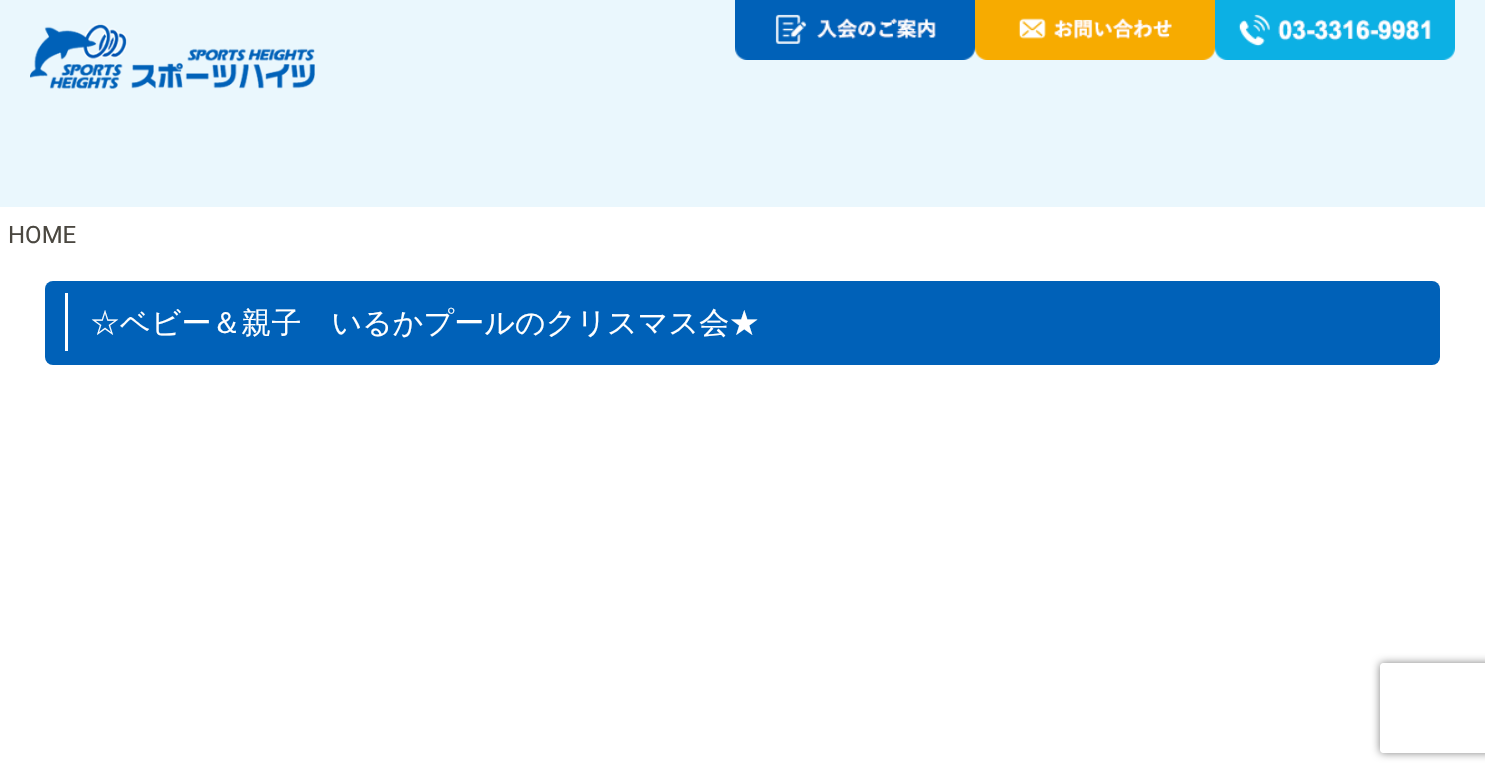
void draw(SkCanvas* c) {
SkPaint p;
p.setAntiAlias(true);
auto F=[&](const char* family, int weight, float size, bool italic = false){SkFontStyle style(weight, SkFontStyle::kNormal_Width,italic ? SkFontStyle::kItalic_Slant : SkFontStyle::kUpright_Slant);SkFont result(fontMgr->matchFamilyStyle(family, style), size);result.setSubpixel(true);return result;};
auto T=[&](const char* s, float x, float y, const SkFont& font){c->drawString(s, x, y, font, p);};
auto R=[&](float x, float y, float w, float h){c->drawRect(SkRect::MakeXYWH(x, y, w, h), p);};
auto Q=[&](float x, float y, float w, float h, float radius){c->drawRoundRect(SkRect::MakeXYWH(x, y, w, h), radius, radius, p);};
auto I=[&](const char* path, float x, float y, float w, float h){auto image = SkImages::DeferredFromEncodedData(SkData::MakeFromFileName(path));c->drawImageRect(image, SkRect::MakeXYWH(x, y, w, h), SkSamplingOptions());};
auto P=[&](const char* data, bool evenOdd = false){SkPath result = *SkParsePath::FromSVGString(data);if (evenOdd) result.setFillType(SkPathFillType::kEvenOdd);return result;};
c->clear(0xffffffff);
p.setColor(0xffeaf7fd);
R(0,0,1485,207);
I("1.png",30,24,285,65);
I("2.png",735,0,240,60);
I("3.png",975,0,240,60);
I("4.png",1215,0,240,60);
auto f1 = F("Roboto",400,24);
p.setColor(0xff4b4841);
T("HOME",8,243,f1);
p.setColor(0xff0061b8);
Q(45,281,1395,84,8);
p.setColor(0xffffffff);
R(65,293,3,58);
auto f2 = F("WenQuanYi Zen Hei",500,30);
T("☆ベビー＆親子　いるかプールのクリスマス会★",90,333,f2);
c->save();
c->clipPath(P("M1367 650h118v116h-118zm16 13h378c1.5 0 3 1.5 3 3v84c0 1.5-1.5 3-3 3h-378c-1.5 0-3-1.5-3-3v-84c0-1.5 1.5-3 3-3z",true),true);
p.setColor(0xff808080);
p.setMaskFilter(SkMaskFilter::MakeBlur(kNormal_SkBlurStyle, 4));
c->drawRoundRect(SkRect::MakeXYWH(1380,663,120,90),3,3,p);
p.setMaskFilter(nullptr);
c->restore();
}
